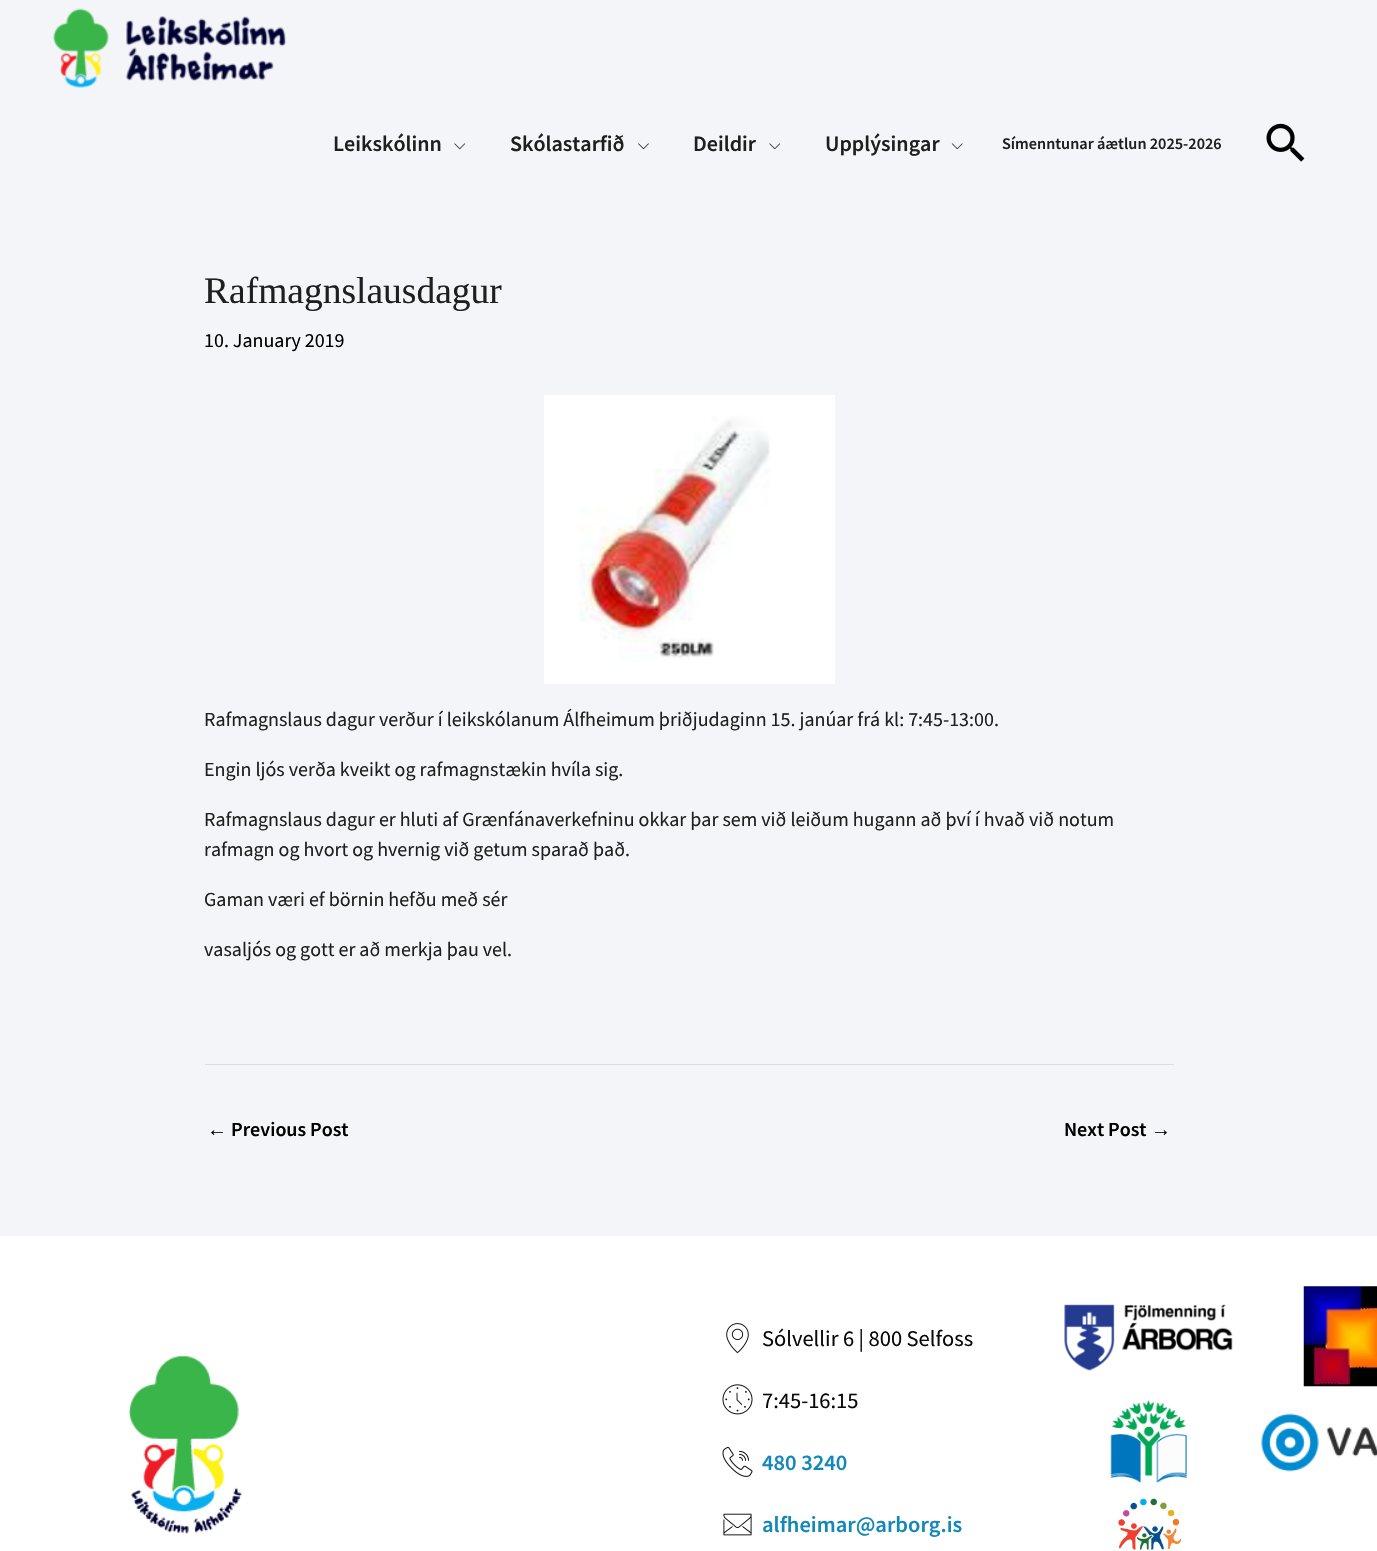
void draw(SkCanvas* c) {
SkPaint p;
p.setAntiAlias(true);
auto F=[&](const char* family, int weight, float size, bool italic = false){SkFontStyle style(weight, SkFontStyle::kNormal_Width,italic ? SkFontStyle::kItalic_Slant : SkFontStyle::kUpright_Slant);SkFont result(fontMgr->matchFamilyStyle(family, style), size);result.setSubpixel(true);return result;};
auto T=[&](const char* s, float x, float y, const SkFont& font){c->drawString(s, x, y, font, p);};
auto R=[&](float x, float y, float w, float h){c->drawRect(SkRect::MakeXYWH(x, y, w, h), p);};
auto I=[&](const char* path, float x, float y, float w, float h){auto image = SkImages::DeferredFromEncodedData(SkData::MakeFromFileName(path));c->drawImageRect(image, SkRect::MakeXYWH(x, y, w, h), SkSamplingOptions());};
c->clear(0xfff4f5f8);
I("1.png",52,8,235,80);
auto f1 = F("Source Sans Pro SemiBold",600,22);
p.setColor(0xff1f1f1f);
T("Leikskólinn",333,151,f1);
I("2.png",454,143,12,7);
T("Skólastarfið",510,151,f1);
I("3.png",638,143,11,7);
T("Deildir",693,151,f1);
I("2.png",769,143,12,7);
T("Upplýsingar",825,151,f1);
I("4.png",951,143,12,7);
auto f2 = F("Source Sans Pro SemiBold",600,16.25);
T("Símenntunar áætlun 2025-2026",1002,149,f2);
I("5.png",1266,123,39,39);
auto f3 = F("Liberation Serif",400,37.5);
T("Rafmagnslausdagur",204,303,f3);
auto f4 = F("Source Sans Pro",400,20);
p.setColor(0xff000000);
T("10. January 2019",204,347,f4);
I("6.png",544,395,291,289);
p.setColor(0xff1f1f1f);
T("Rafmagnslaus dagur verður í leikskólanum Álfheimum þriðjudaginn 15. janúar frá kl: 7:45-13:00.",204,726,f4);
T("Engin ljós verða kveikt og rafmagnstækin hvíla sig.",204,776,f4);
T("Rafmagnslaus dagur er hluti af Grænfánaverkefninu okkar þar sem við leiðum hugann að því í hvað við notum",204,826,f4);
T("rafmagn og hvort og hvernig við getum sparað það.",204,856,f4);
T("Gaman væri ef börnin hefðu með sér",204,906,f4);
T("vasaljós og gott er að merkja þau vel.",204,956,f4);
p.setColor(0xffdddddd);
R(205,1064,969,1);
auto f5 = F("Liberation Sans",700,20);
p.setColor(0xff000000);
T("←",207,1136,f5);
auto f6 = F("Source Sans Pro SemiBold",600,20);
T("Previous Post",231,1136,f6);
T("Next Post",1064,1136,f6);
T("→",1151,1136,f5);
p.setColor(0xffffffff);
R(0,1236,1377,315);
I("7.png",128,1356,114,178);
I("8.png",726,1323,23,31);
auto f7 = F("Source Sans Pro",400,22.5);
p.setColor(0xff0a0a0a);
T("Sólvellir 6 | 800 Selfoss",762,1346,f7);
I("9.png",722,1384,31,31);
T("7:45-16:15",762,1408,f7);
I("10.png",722,1446,31,31);
auto f8 = F("Source Sans Pro SemiBold",600,22.5);
p.setColor(0xff1289b7);
T("480 3240",762,1470,f8);
I("11.png",723,1513,29,23);
T("alfheimar@arborg.is",762,1532,f8);
I("12.png",1064,1304,169,67);
I("13.png",1303,1286,74,101);
I("14.png",1108,1400,80,83);
I("15.png",1261,1413,116,59);
I("16.png",1118,1498,64,52);
}
